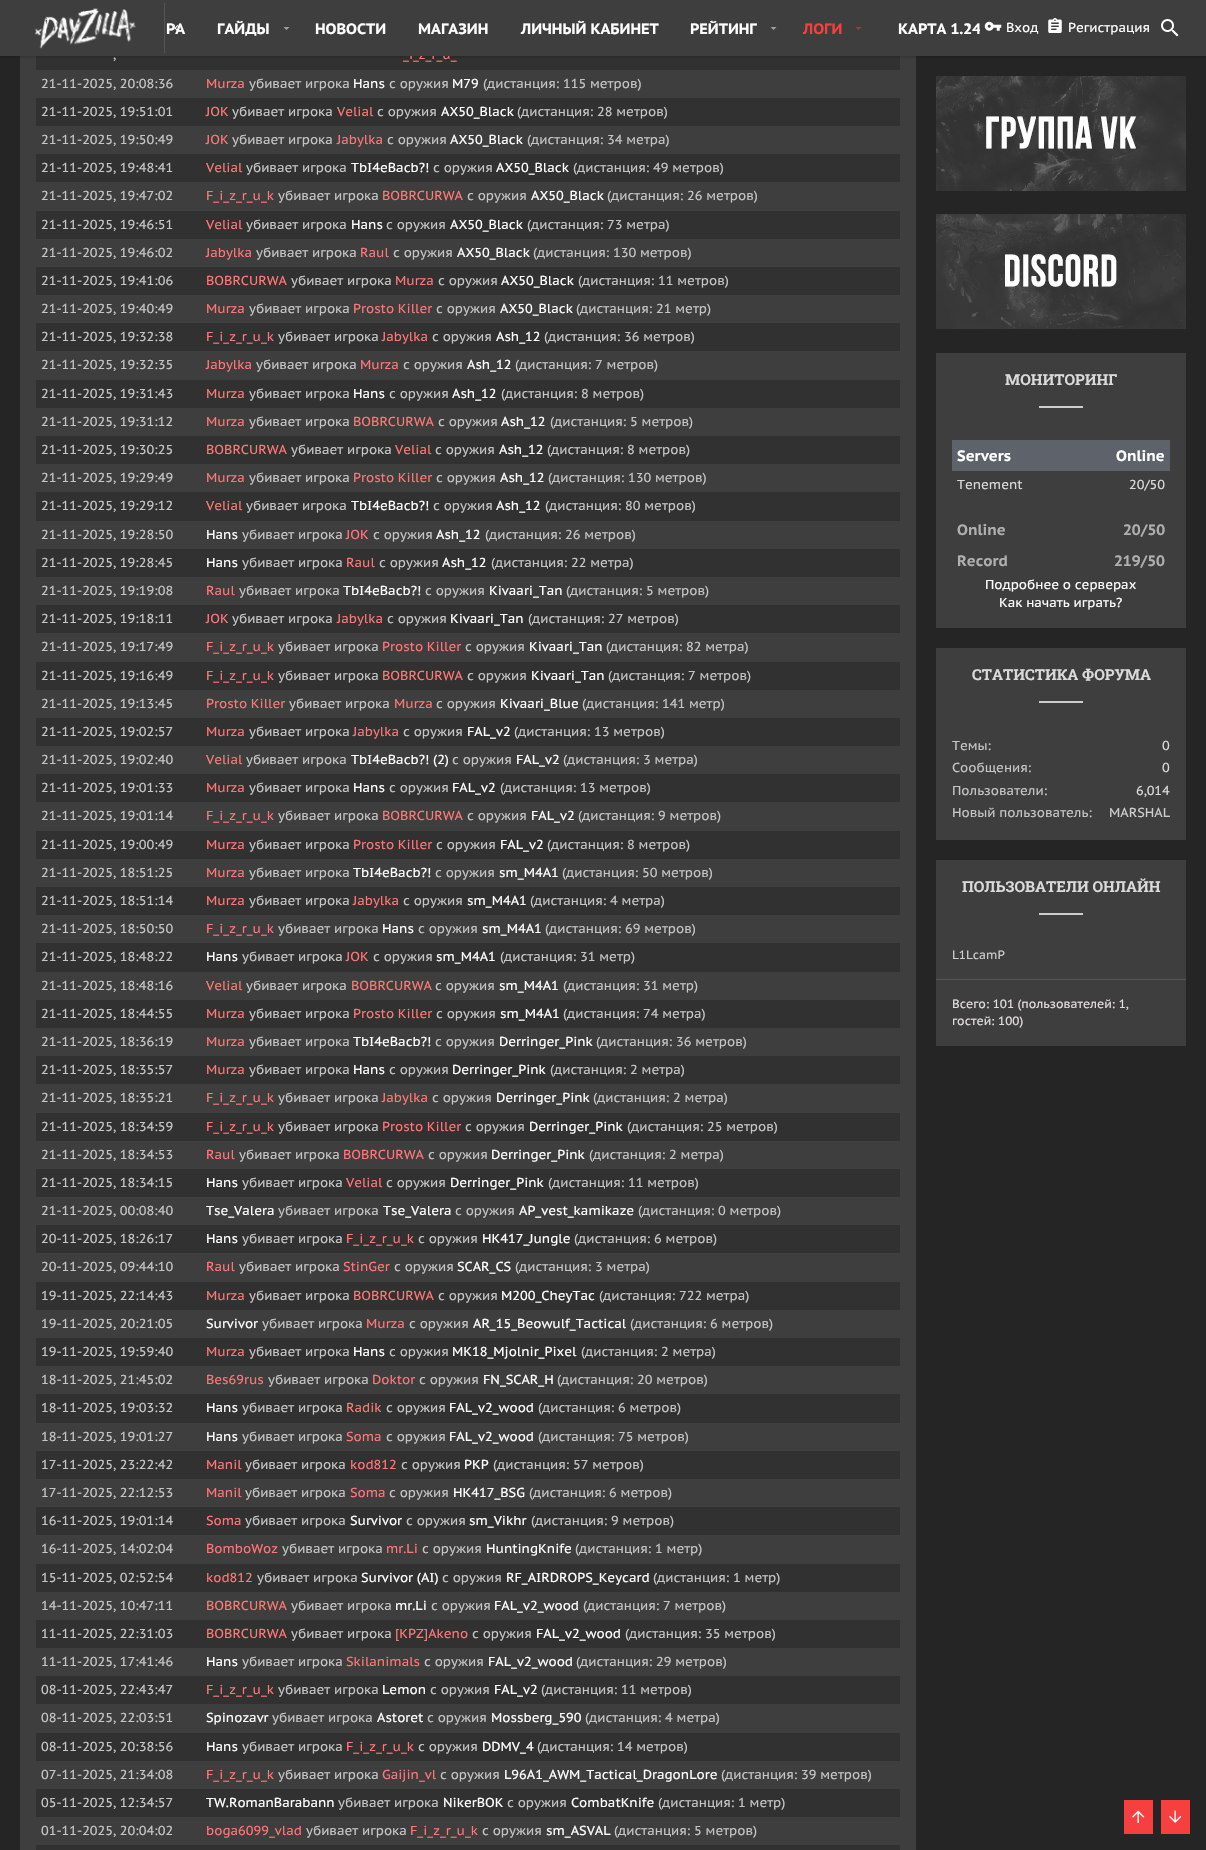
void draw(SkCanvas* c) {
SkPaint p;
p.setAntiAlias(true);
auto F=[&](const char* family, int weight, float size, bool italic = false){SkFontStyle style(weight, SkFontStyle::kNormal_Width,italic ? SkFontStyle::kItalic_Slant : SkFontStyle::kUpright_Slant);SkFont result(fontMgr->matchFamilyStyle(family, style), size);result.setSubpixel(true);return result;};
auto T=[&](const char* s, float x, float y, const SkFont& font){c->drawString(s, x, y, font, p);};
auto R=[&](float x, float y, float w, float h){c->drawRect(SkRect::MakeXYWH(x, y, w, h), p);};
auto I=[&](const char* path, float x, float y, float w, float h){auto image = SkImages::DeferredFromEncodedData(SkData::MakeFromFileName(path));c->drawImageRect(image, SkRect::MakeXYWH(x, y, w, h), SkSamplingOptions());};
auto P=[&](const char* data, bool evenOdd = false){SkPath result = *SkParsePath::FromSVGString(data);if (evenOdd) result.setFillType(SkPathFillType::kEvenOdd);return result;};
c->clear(0xff252525);
p.setColor(0xff3e3e3e);
R(20,56,896,1794);
p.setColor(0xff313131);
R(36,56,864,14);
p.setColor(0x1a000000);
p.setMaskFilter(SkMaskFilter::MakeBlur(kNormal_SkBlurStyle, 1.5));
c->drawRect(SkRect::MakeXYWH(0,1,1206,56),p);
p.setMaskFilter(nullptr);
p.setColor(0x0f000000);
p.setMaskFilter(SkMaskFilter::MakeBlur(kNormal_SkBlurStyle, 1));
c->drawRect(SkRect::MakeXYWH(0,2,1206,56),p);
p.setMaskFilter(nullptr);
p.setColor(0x12000000);
p.setMaskFilter(SkMaskFilter::MakeBlur(kNormal_SkBlurStyle, 1));
c->drawRect(SkRect::MakeXYWH(0,0,1206,56),p);
p.setMaskFilter(nullptr);
auto f1 = F("PT Sans Caption",400,13);
p.setColor(0xffff7777);
T("_i_z_r_u_",403,59,f1);
p.setColor(0xff3e3e3e);
R(0,0,1206,56);
p.setColor(0xff555555);
R(164,3,1,50);
I("1.png",35,8,101,41);
auto f2 = F("PT Sans Caption",700,15);
p.setColor(0xffffffff);
T("РА",166,34,f2);
T("ГАЙДЫ",217,34,f2);
p.setColor(0xff9f9f9f);
c->drawPath(P("M283.5 27l3 3l3-3z"),p);
p.setColor(0xffffffff);
T("НОВОСТИ",315,34,f2);
T("МАГАЗИН",418,34,f2);
T("ЛИЧНЫЙ КАБИНЕТ",521,34,f2);
T("РЕЙТИНГ",690,34,f2);
p.setColor(0xff9f9f9f);
c->drawPath(P("M770.5 27l3 3l3-3z"),p);
p.setColor(0xfff83f3f);
T("ЛОГИ",803,34,f2);
p.setColor(0xff9b3f3f);
c->drawPath(P("M855.5 27l3 3l3-3z"),p);
c->save();
c->clipRect(SkRect::MakeXYWH(165,5,815,47));
p.setColor(0xffffffff);
T("КАРТА 1.24",898,34,f2);
c->restore();
I("2.png",174,25,5,6);
I("3.png",966,25,5,6);
I("4.png",984,21,18,10);
T("Вход",1006,32,f1);
I("5.png",1048,18,14,15);
T("Регистрация",1068,32,f1);
I("6.png",1161,19,18,18);
p.setColor(0xffc5c5c5);
T(",",113,59,f1);
T("21-11-2025, 20:08:36",41,88,f1);
p.setColor(0xffff7777);
T("Murza",206,88,f1);
p.setColor(0xffc5c5c5);
T("убивает игрока",249,88,f1);
p.setColor(0xffffffff);
T("Hans",353,88,f1);
p.setColor(0xffc5c5c5);
T("с оружия",389,88,f1);
p.setColor(0xffffffff);
T("M79",452,88,f1);
p.setColor(0xffc5c5c5);
T("(дистанция: 115 метров)",483,88,f1);
p.setColor(0xff313131);
R(36,98,864,28);
p.setColor(0xffc5c5c5);
T("21-11-2025, 19:51:01",41,116,f1);
p.setColor(0xffff7777);
T("JOK",206,116,f1);
p.setColor(0xffc5c5c5);
T("убивает игрока",232,116,f1);
p.setColor(0xffff7777);
T("Velial",337,116,f1);
p.setColor(0xffc5c5c5);
T("с оружия",377,116,f1);
p.setColor(0xffffffff);
T("AX50_Black",441,116,f1);
p.setColor(0xffc5c5c5);
T("(дистанция: 28 метров)",517,116,f1);
T("21-11-2025, 19:50:49",41,144,f1);
p.setColor(0xffff7777);
T("JOK",206,144,f1);
p.setColor(0xffc5c5c5);
T("убивает игрока",232,144,f1);
p.setColor(0xffff7777);
T("Jabylka",337,144,f1);
p.setColor(0xffc5c5c5);
T("с оружия",387,144,f1);
p.setColor(0xffffffff);
T("AX50_Black",450,144,f1);
p.setColor(0xffc5c5c5);
T("(дистанция: 34 метра)",527,144,f1);
p.setColor(0xff313131);
R(36,154,864,28);
p.setColor(0xffc5c5c5);
T("21-11-2025, 19:48:41",41,172,f1);
p.setColor(0xffff7777);
T("Velial",206,172,f1);
p.setColor(0xffc5c5c5);
T("убивает игрока",246,172,f1);
p.setColor(0xffffffff);
T("TbI4eBacb?!",351,172,f1);
p.setColor(0xffc5c5c5);
T("с оружия",433,172,f1);
p.setColor(0xffffffff);
T("AX50_Black",496,172,f1);
p.setColor(0xffc5c5c5);
T("(дистанция: 49 метров)",573,172,f1);
T("21-11-2025, 19:47:02",41,200,f1);
p.setColor(0xffff7777);
T("F_i_z_r_u_k",206,200,f1);
p.setColor(0xffc5c5c5);
T("убивает игрока",278,200,f1);
p.setColor(0xffff7777);
T("BOBRCURWA",382,200,f1);
p.setColor(0xffc5c5c5);
T("с оружия",467,200,f1);
p.setColor(0xffffffff);
T("AX50_Black",531,200,f1);
p.setColor(0xffc5c5c5);
T("(дистанция: 26 метров)",607,200,f1);
p.setColor(0xff313131);
R(36,211,864,28);
p.setColor(0xffc5c5c5);
T("21-11-2025, 19:46:51",41,229,f1);
p.setColor(0xffff7777);
T("Velial",206,229,f1);
p.setColor(0xffc5c5c5);
T("убивает игрока",246,229,f1);
p.setColor(0xffffffff);
T("Hans",351,229,f1);
p.setColor(0xffc5c5c5);
T("с оружия",386,229,f1);
p.setColor(0xffffffff);
T("AX50_Black",450,229,f1);
p.setColor(0xffc5c5c5);
T("(дистанция: 73 метра)",527,229,f1);
T("21-11-2025, 19:46:02",41,257,f1);
p.setColor(0xffff7777);
T("Jabylka",206,257,f1);
p.setColor(0xffc5c5c5);
T("убивает игрока",256,257,f1);
p.setColor(0xffff7777);
T("Raul",360,257,f1);
p.setColor(0xffc5c5c5);
T("с оружия",393,257,f1);
p.setColor(0xffffffff);
T("AX50_Black",457,257,f1);
p.setColor(0xffc5c5c5);
T("(дистанция: 130 метров)",533,257,f1);
p.setColor(0xff313131);
R(36,267,864,28);
p.setColor(0xffc5c5c5);
T("21-11-2025, 19:41:06",41,285,f1);
p.setColor(0xffff7777);
T("BOBRCURWA",206,285,f1);
p.setColor(0xffc5c5c5);
T("убивает игрока",291,285,f1);
p.setColor(0xffff7777);
T("Murza",395,285,f1);
p.setColor(0xffc5c5c5);
T("с оружия",438,285,f1);
p.setColor(0xffffffff);
T("AX50_Black",501,285,f1);
p.setColor(0xffc5c5c5);
T("(дистанция: 11 метров)",578,285,f1);
T("21-11-2025, 19:40:49",41,313,f1);
p.setColor(0xffff7777);
T("Murza",206,313,f1);
p.setColor(0xffc5c5c5);
T("убивает игрока",249,313,f1);
p.setColor(0xffff7777);
T("Prosto Killer",353,313,f1);
p.setColor(0xffc5c5c5);
T("с оружия",436,313,f1);
p.setColor(0xffffffff);
T("AX50_Black",500,313,f1);
p.setColor(0xffc5c5c5);
T("(дистанция: 21 метр)",576,313,f1);
p.setColor(0xff313131);
R(36,323,864,28);
p.setColor(0xffc5c5c5);
T("21-11-2025, 19:32:38",41,341,f1);
p.setColor(0xffff7777);
T("F_i_z_r_u_k",206,341,f1);
p.setColor(0xffc5c5c5);
T("убивает игрока",278,341,f1);
p.setColor(0xffff7777);
T("Jabylka",382,341,f1);
p.setColor(0xffc5c5c5);
T("с оружия",432,341,f1);
p.setColor(0xffffffff);
T("Ash_12",496,341,f1);
p.setColor(0xffc5c5c5);
T("(дистанция: 36 метров)",544,341,f1);
T("21-11-2025, 19:32:35",41,369,f1);
p.setColor(0xffff7777);
T("Jabylka",206,369,f1);
p.setColor(0xffc5c5c5);
T("убивает игрока",256,369,f1);
p.setColor(0xffff7777);
T("Murza",360,369,f1);
p.setColor(0xffc5c5c5);
T("с оружия",403,369,f1);
p.setColor(0xffffffff);
T("Ash_12",467,369,f1);
p.setColor(0xffc5c5c5);
T("(дистанция: 7 метров)",515,369,f1);
p.setColor(0xff313131);
R(36,380,864,28);
p.setColor(0xffc5c5c5);
T("21-11-2025, 19:31:43",41,398,f1);
p.setColor(0xffff7777);
T("Murza",206,398,f1);
p.setColor(0xffc5c5c5);
T("убивает игрока",249,398,f1);
p.setColor(0xffffffff);
T("Hans",353,398,f1);
p.setColor(0xffc5c5c5);
T("с оружия",389,398,f1);
p.setColor(0xffffffff);
T("Ash_12",452,398,f1);
p.setColor(0xffc5c5c5);
T("(дистанция: 8 метров)",501,398,f1);
T("21-11-2025, 19:31:12",41,426,f1);
p.setColor(0xffff7777);
T("Murza",206,426,f1);
p.setColor(0xffc5c5c5);
T("убивает игрока",249,426,f1);
p.setColor(0xffff7777);
T("BOBRCURWA",353,426,f1);
p.setColor(0xffc5c5c5);
T("с оружия",438,426,f1);
p.setColor(0xffffffff);
T("Ash_12",501,426,f1);
p.setColor(0xffc5c5c5);
T("(дистанция: 5 метров)",550,426,f1);
p.setColor(0xff313131);
R(36,436,864,28);
p.setColor(0xffc5c5c5);
T("21-11-2025, 19:30:25",41,454,f1);
p.setColor(0xffff7777);
T("BOBRCURWA",206,454,f1);
p.setColor(0xffc5c5c5);
T("убивает игрока",291,454,f1);
p.setColor(0xffff7777);
T("Velial",395,454,f1);
p.setColor(0xffc5c5c5);
T("с оружия",435,454,f1);
p.setColor(0xffffffff);
T("Ash_12",499,454,f1);
p.setColor(0xffc5c5c5);
T("(дистанция: 8 метров)",547,454,f1);
T("21-11-2025, 19:29:49",41,482,f1);
p.setColor(0xffff7777);
T("Murza",206,482,f1);
p.setColor(0xffc5c5c5);
T("убивает игрока",249,482,f1);
p.setColor(0xffff7777);
T("Prosto Killer",353,482,f1);
p.setColor(0xffc5c5c5);
T("с оружия",436,482,f1);
p.setColor(0xffffffff);
T("Ash_12",500,482,f1);
p.setColor(0xffc5c5c5);
T("(дистанция: 130 метров)",548,482,f1);
p.setColor(0xff313131);
R(36,492,864,29);
p.setColor(0xffc5c5c5);
T("21-11-2025, 19:29:12",41,510,f1);
p.setColor(0xffff7777);
T("Velial",206,510,f1);
p.setColor(0xffc5c5c5);
T("убивает игрока",246,510,f1);
p.setColor(0xffffffff);
T("TbI4eBacb?!",351,510,f1);
p.setColor(0xffc5c5c5);
T("с оружия",433,510,f1);
p.setColor(0xffffffff);
T("Ash_12",496,510,f1);
p.setColor(0xffc5c5c5);
T("(дистанция: 80 метров)",545,510,f1);
T("21-11-2025, 19:28:50",41,539,f1);
p.setColor(0xffffffff);
T("Hans",206,539,f1);
p.setColor(0xffc5c5c5);
T("убивает игрока",242,539,f1);
p.setColor(0xffff7777);
T("JOK",346,539,f1);
p.setColor(0xffc5c5c5);
T("с оружия",373,539,f1);
p.setColor(0xffffffff);
T("Ash_12",436,539,f1);
p.setColor(0xffc5c5c5);
T("(дистанция: 26 метров)",485,539,f1);
p.setColor(0xff313131);
R(36,549,864,28);
p.setColor(0xffc5c5c5);
T("21-11-2025, 19:28:45",41,567,f1);
p.setColor(0xffffffff);
T("Hans",206,567,f1);
p.setColor(0xffc5c5c5);
T("убивает игрока",242,567,f1);
p.setColor(0xffff7777);
T("Raul",346,567,f1);
p.setColor(0xffc5c5c5);
T("с оружия",379,567,f1);
p.setColor(0xffffffff);
T("Ash_12",442,567,f1);
p.setColor(0xffc5c5c5);
T("(дистанция: 22 метра)",491,567,f1);
T("21-11-2025, 19:19:08",41,595,f1);
p.setColor(0xffff7777);
T("Raul",206,595,f1);
p.setColor(0xffc5c5c5);
T("убивает игрока",239,595,f1);
p.setColor(0xffffffff);
T("TbI4eBacb?!",343,595,f1);
p.setColor(0xffc5c5c5);
T("с оружия",425,595,f1);
p.setColor(0xffffffff);
T("Kivaari_Tan",489,595,f1);
p.setColor(0xffc5c5c5);
T("(дистанция: 5 метров)",566,595,f1);
p.setColor(0xff313131);
R(36,605,864,28);
p.setColor(0xffc5c5c5);
T("21-11-2025, 19:18:11",41,623,f1);
p.setColor(0xffff7777);
T("JOK",206,623,f1);
p.setColor(0xffc5c5c5);
T("убивает игрока",232,623,f1);
p.setColor(0xffff7777);
T("Jabylka",337,623,f1);
p.setColor(0xffc5c5c5);
T("с оружия",387,623,f1);
p.setColor(0xffffffff);
T("Kivaari_Tan",450,623,f1);
p.setColor(0xffc5c5c5);
T("(дистанция: 27 метров)",528,623,f1);
T("21-11-2025, 19:17:49",41,651,f1);
p.setColor(0xffff7777);
T("F_i_z_r_u_k",206,651,f1);
p.setColor(0xffc5c5c5);
T("убивает игрока",278,651,f1);
p.setColor(0xffff7777);
T("Prosto Killer",382,651,f1);
p.setColor(0xffc5c5c5);
T("с оружия",465,651,f1);
p.setColor(0xffffffff);
T("Kivaari_Tan",529,651,f1);
p.setColor(0xffc5c5c5);
T("(дистанция: 82 метра)",606,651,f1);
p.setColor(0xff313131);
R(36,662,864,28);
p.setColor(0xffc5c5c5);
T("21-11-2025, 19:16:49",41,680,f1);
p.setColor(0xffff7777);
T("F_i_z_r_u_k",206,680,f1);
p.setColor(0xffc5c5c5);
T("убивает игрока",278,680,f1);
p.setColor(0xffff7777);
T("BOBRCURWA",382,680,f1);
p.setColor(0xffc5c5c5);
T("с оружия",467,680,f1);
p.setColor(0xffffffff);
T("Kivaari_Tan",531,680,f1);
p.setColor(0xffc5c5c5);
T("(дистанция: 7 метров)",608,680,f1);
T("21-11-2025, 19:13:45",41,708,f1);
p.setColor(0xffff7777);
T("Prosto Killer",206,708,f1);
p.setColor(0xffc5c5c5);
T("убивает игрока",289,708,f1);
p.setColor(0xffff7777);
T("Murza",394,708,f1);
p.setColor(0xffc5c5c5);
T("с оружия",436,708,f1);
p.setColor(0xffffffff);
T("Kivaari_Blue",500,708,f1);
p.setColor(0xffc5c5c5);
T("(дистанция: 141 метр)",582,708,f1);
p.setColor(0xff313131);
R(36,718,864,28);
p.setColor(0xffc5c5c5);
T("21-11-2025, 19:02:57",41,736,f1);
p.setColor(0xffff7777);
T("Murza",206,736,f1);
p.setColor(0xffc5c5c5);
T("убивает игрока",249,736,f1);
p.setColor(0xffff7777);
T("Jabylka",353,736,f1);
p.setColor(0xffc5c5c5);
T("с оружия",403,736,f1);
p.setColor(0xffffffff);
T("FAL_v2",467,736,f1);
p.setColor(0xffc5c5c5);
T("(дистанция: 13 метров)",514,736,f1);
T("21-11-2025, 19:02:40",41,764,f1);
p.setColor(0xffff7777);
T("Velial",206,764,f1);
p.setColor(0xffc5c5c5);
T("убивает игрока",246,764,f1);
p.setColor(0xffffffff);
T("TbI4eBacb?! (2)",351,764,f1);
p.setColor(0xffc5c5c5);
T("с оружия",452,764,f1);
p.setColor(0xffffffff);
T("FAL_v2",516,764,f1);
p.setColor(0xffc5c5c5);
T("(дистанция: 3 метра)",563,764,f1);
p.setColor(0xff313131);
R(36,774,864,28);
p.setColor(0xffc5c5c5);
T("21-11-2025, 19:01:33",41,792,f1);
p.setColor(0xffff7777);
T("Murza",206,792,f1);
p.setColor(0xffc5c5c5);
T("убивает игрока",249,792,f1);
p.setColor(0xffffffff);
T("Hans",353,792,f1);
p.setColor(0xffc5c5c5);
T("с оружия",389,792,f1);
p.setColor(0xffffffff);
T("FAL_v2",452,792,f1);
p.setColor(0xffc5c5c5);
T("(дистанция: 13 метров)",500,792,f1);
T("21-11-2025, 19:01:14",41,820,f1);
p.setColor(0xffff7777);
T("F_i_z_r_u_k",206,820,f1);
p.setColor(0xffc5c5c5);
T("убивает игрока",278,820,f1);
p.setColor(0xffff7777);
T("BOBRCURWA",382,820,f1);
p.setColor(0xffc5c5c5);
T("с оружия",467,820,f1);
p.setColor(0xffffffff);
T("FAL_v2",531,820,f1);
p.setColor(0xffc5c5c5);
T("(дистанция: 9 метров)",578,820,f1);
p.setColor(0xff313131);
R(36,831,864,28);
p.setColor(0xffc5c5c5);
T("21-11-2025, 19:00:49",41,849,f1);
p.setColor(0xffff7777);
T("Murza",206,849,f1);
p.setColor(0xffc5c5c5);
T("убивает игрока",249,849,f1);
p.setColor(0xffff7777);
T("Prosto Killer",353,849,f1);
p.setColor(0xffc5c5c5);
T("с оружия",436,849,f1);
p.setColor(0xffffffff);
T("FAL_v2",500,849,f1);
p.setColor(0xffc5c5c5);
T("(дистанция: 8 метров)",547,849,f1);
T("21-11-2025, 18:51:25",41,877,f1);
p.setColor(0xffff7777);
T("Murza",206,877,f1);
p.setColor(0xffc5c5c5);
T("убивает игрока",249,877,f1);
p.setColor(0xffffffff);
T("TbI4eBacb?!",353,877,f1);
p.setColor(0xffc5c5c5);
T("с оружия",435,877,f1);
p.setColor(0xffffffff);
T("sm_M4A1",499,877,f1);
p.setColor(0xffc5c5c5);
T("(дистанция: 50 метров)",562,877,f1);
p.setColor(0xff313131);
R(36,887,864,28);
p.setColor(0xffc5c5c5);
T("21-11-2025, 18:51:14",41,905,f1);
p.setColor(0xffff7777);
T("Murza",206,905,f1);
p.setColor(0xffc5c5c5);
T("убивает игрока",249,905,f1);
p.setColor(0xffff7777);
T("Jabylka",353,905,f1);
p.setColor(0xffc5c5c5);
T("с оружия",403,905,f1);
p.setColor(0xffffffff);
T("sm_M4A1",467,905,f1);
p.setColor(0xffc5c5c5);
T("(дистанция: 4 метра)",530,905,f1);
T("21-11-2025, 18:50:50",41,933,f1);
p.setColor(0xffff7777);
T("F_i_z_r_u_k",206,933,f1);
p.setColor(0xffc5c5c5);
T("убивает игрока",278,933,f1);
p.setColor(0xffffffff);
T("Hans",382,933,f1);
p.setColor(0xffc5c5c5);
T("с оружия",418,933,f1);
p.setColor(0xffffffff);
T("sm_M4A1",482,933,f1);
p.setColor(0xffc5c5c5);
T("(дистанция: 69 метров)",545,933,f1);
p.setColor(0xff313131);
R(36,943,864,29);
p.setColor(0xffc5c5c5);
T("21-11-2025, 18:48:22",41,961,f1);
p.setColor(0xffffffff);
T("Hans",206,961,f1);
p.setColor(0xffc5c5c5);
T("убивает игрока",242,961,f1);
p.setColor(0xffff7777);
T("JOK",346,961,f1);
p.setColor(0xffc5c5c5);
T("с оружия",373,961,f1);
p.setColor(0xffffffff);
T("sm_M4A1",436,961,f1);
p.setColor(0xffc5c5c5);
T("(дистанция: 31 метр)",500,961,f1);
T("21-11-2025, 18:48:16",41,990,f1);
p.setColor(0xffff7777);
T("Velial",206,990,f1);
p.setColor(0xffc5c5c5);
T("убивает игрока",246,990,f1);
p.setColor(0xffff7777);
T("BOBRCURWA",351,990,f1);
p.setColor(0xffc5c5c5);
T("с оружия",435,990,f1);
p.setColor(0xffffffff);
T("sm_M4A1",499,990,f1);
p.setColor(0xffc5c5c5);
T("(дистанция: 31 метр)",563,990,f1);
p.setColor(0xff313131);
R(36,1000,864,28);
p.setColor(0xffc5c5c5);
T("21-11-2025, 18:44:55",41,1018,f1);
p.setColor(0xffff7777);
T("Murza",206,1018,f1);
p.setColor(0xffc5c5c5);
T("убивает игрока",249,1018,f1);
p.setColor(0xffff7777);
T("Prosto Killer",353,1018,f1);
p.setColor(0xffc5c5c5);
T("с оружия",436,1018,f1);
p.setColor(0xffffffff);
T("sm_M4A1",500,1018,f1);
p.setColor(0xffc5c5c5);
T("(дистанция: 74 метра)",563,1018,f1);
T("21-11-2025, 18:36:19",41,1046,f1);
p.setColor(0xffff7777);
T("Murza",206,1046,f1);
p.setColor(0xffc5c5c5);
T("убивает игрока",249,1046,f1);
p.setColor(0xffffffff);
T("TbI4eBacb?!",353,1046,f1);
p.setColor(0xffc5c5c5);
T("с оружия",435,1046,f1);
p.setColor(0xffffffff);
T("Derringer_Pink",499,1046,f1);
p.setColor(0xffc5c5c5);
T("(дистанция: 36 метров)",596,1046,f1);
p.setColor(0xff313131);
R(36,1056,864,28);
p.setColor(0xffc5c5c5);
T("21-11-2025, 18:35:57",41,1074,f1);
p.setColor(0xffff7777);
T("Murza",206,1074,f1);
p.setColor(0xffc5c5c5);
T("убивает игрока",249,1074,f1);
p.setColor(0xffffffff);
T("Hans",353,1074,f1);
p.setColor(0xffc5c5c5);
T("с оружия",389,1074,f1);
p.setColor(0xffffffff);
T("Derringer_Pink",452,1074,f1);
p.setColor(0xffc5c5c5);
T("(дистанция: 2 метра)",550,1074,f1);
T("21-11-2025, 18:35:21",41,1102,f1);
p.setColor(0xffff7777);
T("F_i_z_r_u_k",206,1102,f1);
p.setColor(0xffc5c5c5);
T("убивает игрока",278,1102,f1);
p.setColor(0xffff7777);
T("Jabylka",382,1102,f1);
p.setColor(0xffc5c5c5);
T("с оружия",432,1102,f1);
p.setColor(0xffffffff);
T("Derringer_Pink",496,1102,f1);
p.setColor(0xffc5c5c5);
T("(дистанция: 2 метра)",593,1102,f1);
p.setColor(0xff313131);
R(36,1113,864,28);
p.setColor(0xffc5c5c5);
T("21-11-2025, 18:34:59",41,1131,f1);
p.setColor(0xffff7777);
T("F_i_z_r_u_k",206,1131,f1);
p.setColor(0xffc5c5c5);
T("убивает игрока",278,1131,f1);
p.setColor(0xffff7777);
T("Prosto Killer",382,1131,f1);
p.setColor(0xffc5c5c5);
T("с оружия",465,1131,f1);
p.setColor(0xffffffff);
T("Derringer_Pink",529,1131,f1);
p.setColor(0xffc5c5c5);
T("(дистанция: 25 метров)",627,1131,f1);
T("21-11-2025, 18:34:53",41,1159,f1);
p.setColor(0xffff7777);
T("Raul",206,1159,f1);
p.setColor(0xffc5c5c5);
T("убивает игрока",239,1159,f1);
p.setColor(0xffff7777);
T("BOBRCURWA",343,1159,f1);
p.setColor(0xffc5c5c5);
T("с оружия",428,1159,f1);
p.setColor(0xffffffff);
T("Derringer_Pink",491,1159,f1);
p.setColor(0xffc5c5c5);
T("(дистанция: 2 метра)",589,1159,f1);
p.setColor(0xff313131);
R(36,1169,864,28);
p.setColor(0xffc5c5c5);
T("21-11-2025, 18:34:15",41,1187,f1);
p.setColor(0xffffffff);
T("Hans",206,1187,f1);
p.setColor(0xffc5c5c5);
T("убивает игрока",242,1187,f1);
p.setColor(0xffff7777);
T("Velial",346,1187,f1);
p.setColor(0xffc5c5c5);
T("с оружия",386,1187,f1);
p.setColor(0xffffffff);
T("Derringer_Pink",450,1187,f1);
p.setColor(0xffc5c5c5);
T("(дистанция: 11 метров)",548,1187,f1);
T("21-11-2025, 00:08:40",41,1215,f1);
p.setColor(0xffffffff);
T("Tse_Valera",206,1215,f1);
p.setColor(0xffc5c5c5);
T("убивает игрока",278,1215,f1);
p.setColor(0xffffffff);
T("Tse_Valera",383,1215,f1);
p.setColor(0xffc5c5c5);
T("с оружия",455,1215,f1);
p.setColor(0xffffffff);
T("AP_vest_kamikaze",519,1215,f1);
p.setColor(0xffc5c5c5);
T("(дистанция: 0 метров)",638,1215,f1);
p.setColor(0xff313131);
R(36,1225,864,28);
p.setColor(0xffc5c5c5);
T("20-11-2025, 18:26:17",41,1243,f1);
p.setColor(0xffffffff);
T("Hans",206,1243,f1);
p.setColor(0xffc5c5c5);
T("убивает игрока",242,1243,f1);
p.setColor(0xffff7777);
T("F_i_z_r_u_k",346,1243,f1);
p.setColor(0xffc5c5c5);
T("с оружия",418,1243,f1);
p.setColor(0xffffffff);
T("HK417_Jungle",482,1243,f1);
p.setColor(0xffc5c5c5);
T("(дистанция: 6 метров)",574,1243,f1);
T("20-11-2025, 09:44:10",41,1271,f1);
p.setColor(0xffff7777);
T("Raul",206,1271,f1);
p.setColor(0xffc5c5c5);
T("убивает игрока",239,1271,f1);
p.setColor(0xffff7777);
T("StinGer",343,1271,f1);
p.setColor(0xffc5c5c5);
T("с оружия",394,1271,f1);
p.setColor(0xffffffff);
T("SCAR_CS",457,1271,f1);
p.setColor(0xffc5c5c5);
T("(дистанция: 3 метра)",515,1271,f1);
p.setColor(0xff313131);
R(36,1282,864,28);
p.setColor(0xffc5c5c5);
T("19-11-2025, 22:14:43",41,1300,f1);
p.setColor(0xffff7777);
T("Murza",206,1300,f1);
p.setColor(0xffc5c5c5);
T("убивает игрока",249,1300,f1);
p.setColor(0xffff7777);
T("BOBRCURWA",353,1300,f1);
p.setColor(0xffc5c5c5);
T("с оружия",438,1300,f1);
p.setColor(0xffffffff);
T("M200_CheyTac",501,1300,f1);
p.setColor(0xffc5c5c5);
T("(дистанция: 722 метра)",599,1300,f1);
T("19-11-2025, 20:21:05",41,1328,f1);
p.setColor(0xffffffff);
T("Survivor",206,1328,f1);
p.setColor(0xffc5c5c5);
T("убивает игрока",262,1328,f1);
p.setColor(0xffff7777);
T("Murza",366,1328,f1);
p.setColor(0xffc5c5c5);
T("с оружия",409,1328,f1);
p.setColor(0xffffffff);
T("AR_15_Beowulf_Tactical",473,1328,f1);
p.setColor(0xffc5c5c5);
T("(дистанция: 6 метров)",630,1328,f1);
p.setColor(0xff313131);
R(36,1338,864,28);
p.setColor(0xffc5c5c5);
T("19-11-2025, 19:59:40",41,1356,f1);
p.setColor(0xffff7777);
T("Murza",206,1356,f1);
p.setColor(0xffc5c5c5);
T("убивает игрока",249,1356,f1);
p.setColor(0xffffffff);
T("Hans",353,1356,f1);
p.setColor(0xffc5c5c5);
T("с оружия",389,1356,f1);
p.setColor(0xffffffff);
T("MK18_Mjolnir_Pixel",452,1356,f1);
p.setColor(0xffc5c5c5);
T("(дистанция: 2 метра)",581,1356,f1);
T("18-11-2025, 21:45:02",41,1384,f1);
p.setColor(0xffff7777);
T("Bes69rus",206,1384,f1);
p.setColor(0xffc5c5c5);
T("убивает игрока",268,1384,f1);
p.setColor(0xffff7777);
T("Doktor",372,1384,f1);
p.setColor(0xffc5c5c5);
T("с оружия",419,1384,f1);
p.setColor(0xffffffff);
T("FN_SCAR_H",483,1384,f1);
p.setColor(0xffc5c5c5);
T("(дистанция: 20 метров)",557,1384,f1);
p.setColor(0xff313131);
R(36,1394,864,29);
p.setColor(0xffc5c5c5);
T("18-11-2025, 19:03:32",41,1412,f1);
p.setColor(0xffffffff);
T("Hans",206,1412,f1);
p.setColor(0xffc5c5c5);
T("убивает игрока",242,1412,f1);
p.setColor(0xffff7777);
T("Radik",346,1412,f1);
p.setColor(0xffc5c5c5);
T("с оружия",386,1412,f1);
p.setColor(0xffffffff);
T("FAL_v2_wood",449,1412,f1);
p.setColor(0xffc5c5c5);
T("(дистанция: 6 метров)",538,1412,f1);
T("18-11-2025, 19:01:27",41,1441,f1);
p.setColor(0xffffffff);
T("Hans",206,1441,f1);
p.setColor(0xffc5c5c5);
T("убивает игрока",242,1441,f1);
p.setColor(0xffff7777);
T("Soma",346,1441,f1);
p.setColor(0xffc5c5c5);
T("с оружия",386,1441,f1);
p.setColor(0xffffffff);
T("FAL_v2_wood",449,1441,f1);
p.setColor(0xffc5c5c5);
T("(дистанция: 75 метров)",538,1441,f1);
p.setColor(0xff313131);
R(36,1451,864,28);
p.setColor(0xffc5c5c5);
T("17-11-2025, 23:22:42",41,1469,f1);
p.setColor(0xffff7777);
T("Manil",206,1469,f1);
p.setColor(0xffc5c5c5);
T("убивает игрока",245,1469,f1);
p.setColor(0xffff7777);
T("kod812",350,1469,f1);
p.setColor(0xffc5c5c5);
T("с оружия",401,1469,f1);
p.setColor(0xffffffff);
T("PKP",464,1469,f1);
p.setColor(0xffc5c5c5);
T("(дистанция: 57 метров)",493,1469,f1);
T("17-11-2025, 22:12:53",41,1497,f1);
p.setColor(0xffff7777);
T("Manil",206,1497,f1);
p.setColor(0xffc5c5c5);
T("убивает игрока",245,1497,f1);
p.setColor(0xffff7777);
T("Soma",350,1497,f1);
p.setColor(0xffc5c5c5);
T("с оружия",389,1497,f1);
p.setColor(0xffffffff);
T("HK417_BSG",453,1497,f1);
p.setColor(0xffc5c5c5);
T("(дистанция: 6 метров)",529,1497,f1);
p.setColor(0xff313131);
R(36,1507,864,28);
p.setColor(0xffc5c5c5);
T("16-11-2025, 19:01:14",41,1525,f1);
p.setColor(0xffff7777);
T("Soma",206,1525,f1);
p.setColor(0xffc5c5c5);
T("убивает игрока",245,1525,f1);
p.setColor(0xffffffff);
T("Survivor",350,1525,f1);
p.setColor(0xffc5c5c5);
T("с оружия",406,1525,f1);
p.setColor(0xffffffff);
T("sm_Vikhr",469,1525,f1);
p.setColor(0xffc5c5c5);
T("(дистанция: 9 метров)",531,1525,f1);
T("16-11-2025, 14:02:04",41,1553,f1);
p.setColor(0xffff7777);
T("BomboWoz",206,1553,f1);
p.setColor(0xffc5c5c5);
T("убивает игрока",282,1553,f1);
p.setColor(0xffff7777);
T("mr.Li",386,1553,f1);
p.setColor(0xffc5c5c5);
T("с оружия",422,1553,f1);
p.setColor(0xffffffff);
T("HuntingKnife",486,1553,f1);
p.setColor(0xffc5c5c5);
T("(дистанция: 1 метр)",575,1553,f1);
p.setColor(0xff313131);
R(36,1564,864,28);
p.setColor(0xffc5c5c5);
T("15-11-2025, 02:52:54",41,1582,f1);
p.setColor(0xffff7777);
T("kod812",206,1582,f1);
p.setColor(0xffc5c5c5);
T("убивает игрока",257,1582,f1);
p.setColor(0xffffffff);
T("Survivor (AI)",361,1582,f1);
p.setColor(0xffc5c5c5);
T("с оружия",442,1582,f1);
p.setColor(0xffffffff);
T("RF_AIRDROPS_Keycard",506,1582,f1);
p.setColor(0xffc5c5c5);
T("(дистанция: 1 метр)",653,1582,f1);
T("14-11-2025, 10:47:11",41,1610,f1);
p.setColor(0xffff7777);
T("BOBRCURWA",206,1610,f1);
p.setColor(0xffc5c5c5);
T("убивает игрока",291,1610,f1);
p.setColor(0xffffffff);
T("mr.Li",395,1610,f1);
p.setColor(0xffc5c5c5);
T("с оружия",431,1610,f1);
p.setColor(0xffffffff);
T("FAL_v2_wood",494,1610,f1);
p.setColor(0xffc5c5c5);
T("(дистанция: 7 метров)",583,1610,f1);
p.setColor(0xff313131);
R(36,1620,864,28);
p.setColor(0xffc5c5c5);
T("11-11-2025, 22:31:03",41,1638,f1);
p.setColor(0xffff7777);
T("BOBRCURWA",206,1638,f1);
p.setColor(0xffc5c5c5);
T("убивает игрока",291,1638,f1);
p.setColor(0xffff7777);
T("[KPZ]Akeno",395,1638,f1);
p.setColor(0xffc5c5c5);
T("с оружия",472,1638,f1);
p.setColor(0xffffffff);
T("FAL_v2_wood",536,1638,f1);
p.setColor(0xffc5c5c5);
T("(дистанция: 35 метров)",625,1638,f1);
T("11-11-2025, 17:41:46",41,1666,f1);
p.setColor(0xffffffff);
T("Hans",206,1666,f1);
p.setColor(0xffc5c5c5);
T("убивает игрока",242,1666,f1);
p.setColor(0xffff7777);
T("Skilanimals",346,1666,f1);
p.setColor(0xffc5c5c5);
T("с оружия",424,1666,f1);
p.setColor(0xffffffff);
T("FAL_v2_wood",488,1666,f1);
p.setColor(0xffc5c5c5);
T("(дистанция: 29 метров)",576,1666,f1);
p.setColor(0xff313131);
R(36,1676,864,28);
p.setColor(0xffc5c5c5);
T("08-11-2025, 22:43:47",41,1694,f1);
p.setColor(0xffff7777);
T("F_i_z_r_u_k",206,1694,f1);
p.setColor(0xffc5c5c5);
T("убивает игрока",278,1694,f1);
p.setColor(0xffffffff);
T("Lemon",382,1694,f1);
p.setColor(0xffc5c5c5);
T("с оружия",430,1694,f1);
p.setColor(0xffffffff);
T("FAL_v2",494,1694,f1);
p.setColor(0xffc5c5c5);
T("(дистанция: 11 метров)",541,1694,f1);
T("08-11-2025, 22:03:51",41,1722,f1);
p.setColor(0xffffffff);
T("Spinozavr",206,1722,f1);
p.setColor(0xffc5c5c5);
T("убивает игрока",272,1722,f1);
p.setColor(0xffffffff);
T("Astoret",377,1722,f1);
p.setColor(0xffc5c5c5);
T("с оружия",427,1722,f1);
p.setColor(0xffffffff);
T("Mossberg_590",491,1722,f1);
p.setColor(0xffc5c5c5);
T("(дистанция: 4 метра)",585,1722,f1);
p.setColor(0xff313131);
R(36,1733,864,28);
p.setColor(0xffc5c5c5);
T("08-11-2025, 20:38:56",41,1751,f1);
p.setColor(0xffffffff);
T("Hans",206,1751,f1);
p.setColor(0xffc5c5c5);
T("убивает игрока",242,1751,f1);
p.setColor(0xffff7777);
T("F_i_z_r_u_k",346,1751,f1);
p.setColor(0xffc5c5c5);
T("с оружия",418,1751,f1);
p.setColor(0xffffffff);
T("DDMV_4",482,1751,f1);
p.setColor(0xffc5c5c5);
T("(дистанция: 14 метров)",537,1751,f1);
T("07-11-2025, 21:34:08",41,1779,f1);
p.setColor(0xffff7777);
T("F_i_z_r_u_k",206,1779,f1);
p.setColor(0xffc5c5c5);
T("убивает игрока",278,1779,f1);
p.setColor(0xffff7777);
T("Gaijin_vl",382,1779,f1);
p.setColor(0xffc5c5c5);
T("с оружия",440,1779,f1);
p.setColor(0xffffffff);
T("L96A1_AWM_Tactical_DragonLore",504,1779,f1);
p.setColor(0xffc5c5c5);
T("(дистанция: 39 метров)",721,1779,f1);
p.setColor(0xff313131);
R(36,1789,864,28);
p.setColor(0xffc5c5c5);
T("05-11-2025, 12:34:57",41,1807,f1);
p.setColor(0xffffffff);
T("TW.RomanBarabann",206,1807,f1);
p.setColor(0xffc5c5c5);
T("убивает игрока",338,1807,f1);
p.setColor(0xffffffff);
T("NikerBOK",443,1807,f1);
p.setColor(0xffc5c5c5);
T("с оружия",507,1807,f1);
p.setColor(0xffffffff);
T("CombatKnife",571,1807,f1);
p.setColor(0xffc5c5c5);
T("(дистанция: 1 метр)",658,1807,f1);
T("01-11-2025, 20:04:02",41,1835,f1);
p.setColor(0xffff7777);
T("boga6099_vlad",206,1835,f1);
p.setColor(0xffc5c5c5);
T("убивает игрока",306,1835,f1);
p.setColor(0xffff7777);
T("F_i_z_r_u_k",410,1835,f1);
p.setColor(0xffc5c5c5);
T("с оружия",482,1835,f1);
p.setColor(0xffffffff);
T("sm_ASVAL",546,1835,f1);
p.setColor(0xffc5c5c5);
T("(дистанция: 5 метров)",614,1835,f1);
p.setColor(0xff313131);
R(36,1845,864,5);
I("7.png",936,76,250,115);
I("8.png",936,214,250,115);
p.setColor(0xff3e3e3e);
R(936,353,250,275);
auto f3 = F("Roboto Slab",700,15);
p.setColor(0xffdadada);
T("МОНИТОРИНГ",1005,385,f3);
p.setColor(0xffcdcdcd);
R(1039,406,44,2);
p.setColor(0xff5e626b);
R(952,440,218,31);
p.setColor(0xffffffff);
T("Servers",957,461,f2);
T("Online",1116,461,f2);
p.setColor(0xffdadada);
T("Tenement",957,489,f1);
T("20/50",1129,489,f1);
p.setColor(0xffafafaf);
T("Online",957,535,f2);
T("20/50",1123,535,f2);
T("Record",957,566,f2);
T("219/50",1114,566,f2);
p.setColor(0xffffffff);
T("Подробнее о серверах",985,589,f1);
T("Как начать играть?",999,607,f1);
p.setColor(0xff3e3e3e);
R(936,648,250,192);
p.setColor(0xffdadada);
T("СТАТИСТИКА ФОРУМА",972,680,f3);
p.setColor(0xffcdcdcd);
R(1039,701,44,2);
p.setColor(0xffc5c5c5);
T("Темы:",952,750,f1);
p.setColor(0xffdadada);
T("0",1162,750,f1);
p.setColor(0xffc5c5c5);
T("Сообщения:",952,772,f1);
p.setColor(0xffdadada);
T("0",1162,772,f1);
p.setColor(0xffc5c5c5);
T("Пользователи:",952,795,f1);
p.setColor(0xffdadada);
T("6,014",1136,795,f1);
p.setColor(0xffc5c5c5);
T("Новый пользователь:",952,817,f1);
p.setColor(0xffcdcdcd);
T("MARSHAL",1109,817,f1);
p.setColor(0xff3e3e3e);
R(936,860,250,186);
p.setColor(0xffdadada);
T("ПОЛЬЗОВАТЕЛИ ОНЛАЙН",962,892,f3);
p.setColor(0xffcdcdcd);
R(1039,913,44,2);
auto f4 = F("PT Sans Caption",400,12);
T("L1LcamP",952,959,f4);
p.setColor(0xff555555);
R(936,979,250,1);
p.setColor(0xffe0dddd);
T("Всего: 101 (пользователей: 1,",952,1008,f4);
T("гостей: 100)",952,1025,f4);
p.setColor(0xfff83f3f);
R(1124,1800,29,34);
I("9.png",1132,1810,13,13);
R(1161,1800,29,34);
I("10.png",1169,1810,13,13);
}
